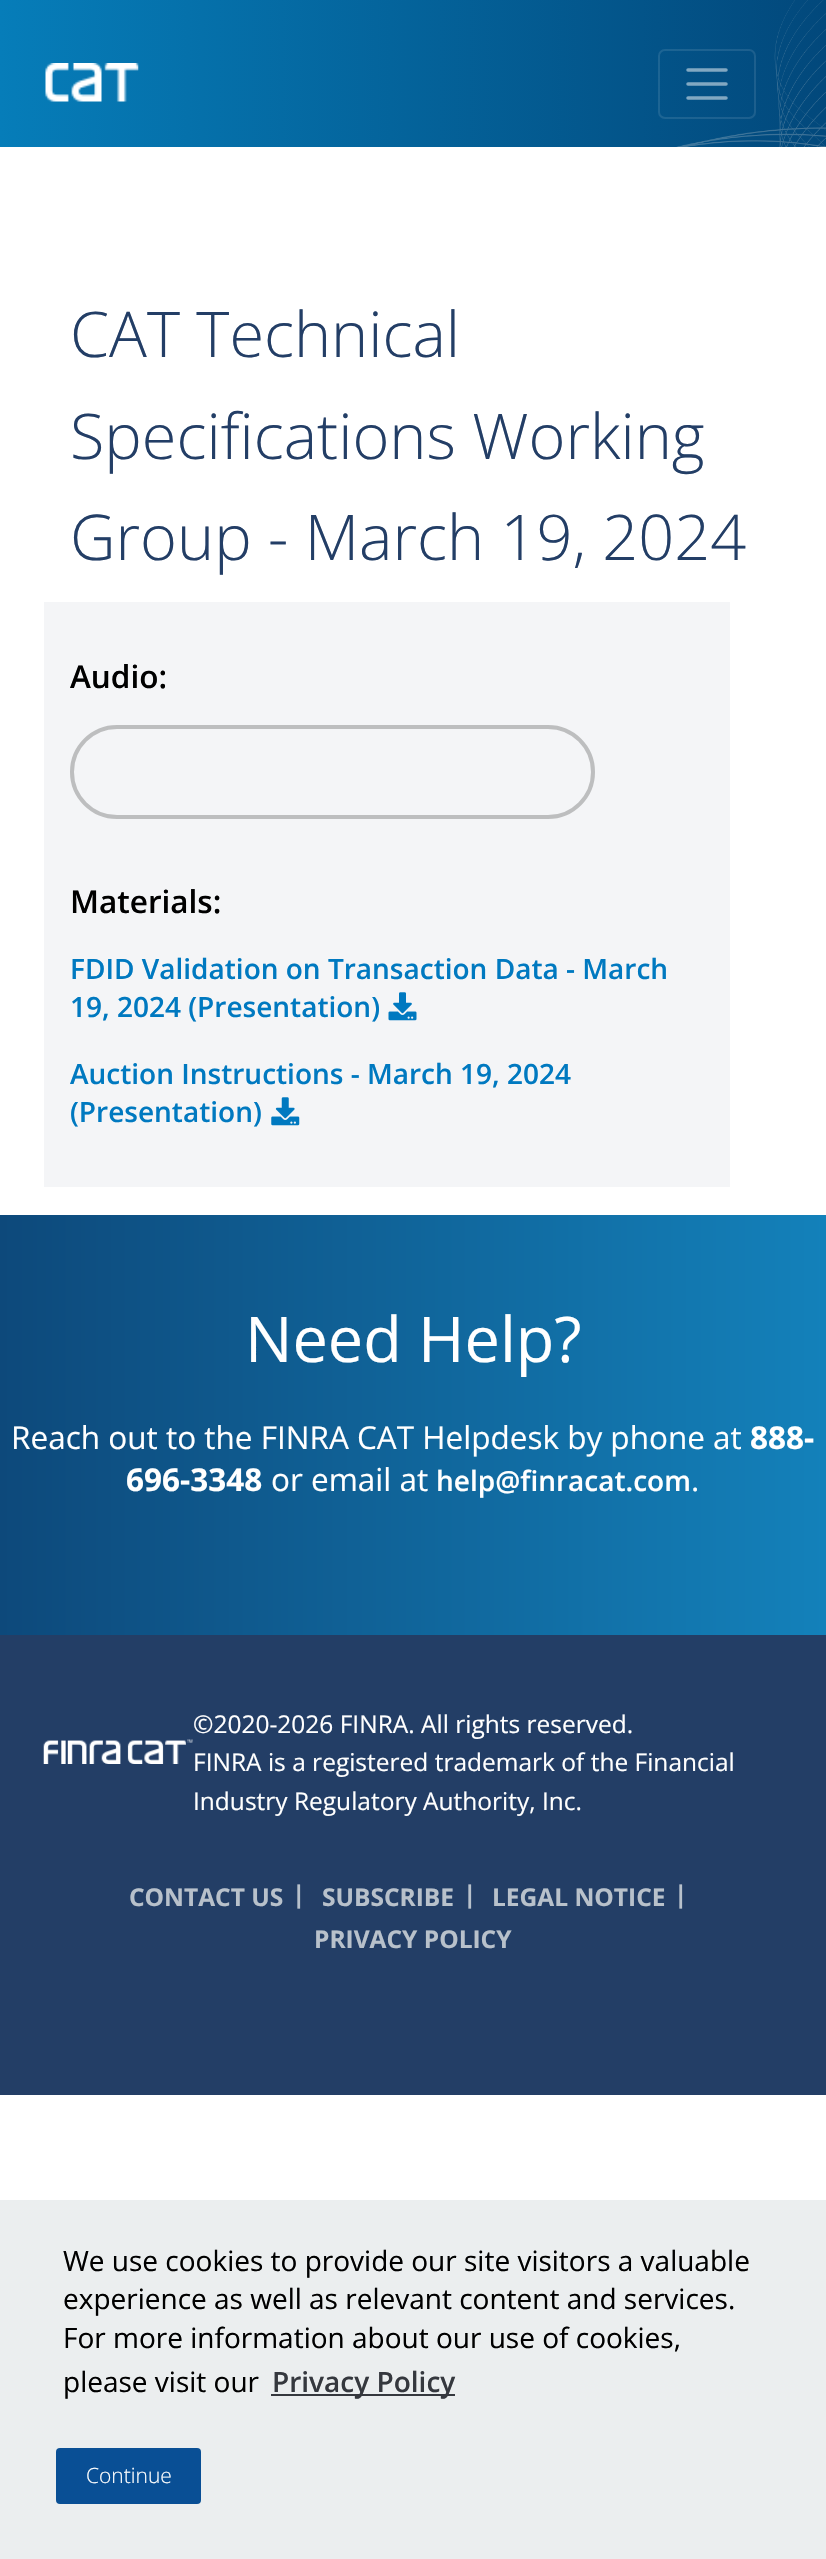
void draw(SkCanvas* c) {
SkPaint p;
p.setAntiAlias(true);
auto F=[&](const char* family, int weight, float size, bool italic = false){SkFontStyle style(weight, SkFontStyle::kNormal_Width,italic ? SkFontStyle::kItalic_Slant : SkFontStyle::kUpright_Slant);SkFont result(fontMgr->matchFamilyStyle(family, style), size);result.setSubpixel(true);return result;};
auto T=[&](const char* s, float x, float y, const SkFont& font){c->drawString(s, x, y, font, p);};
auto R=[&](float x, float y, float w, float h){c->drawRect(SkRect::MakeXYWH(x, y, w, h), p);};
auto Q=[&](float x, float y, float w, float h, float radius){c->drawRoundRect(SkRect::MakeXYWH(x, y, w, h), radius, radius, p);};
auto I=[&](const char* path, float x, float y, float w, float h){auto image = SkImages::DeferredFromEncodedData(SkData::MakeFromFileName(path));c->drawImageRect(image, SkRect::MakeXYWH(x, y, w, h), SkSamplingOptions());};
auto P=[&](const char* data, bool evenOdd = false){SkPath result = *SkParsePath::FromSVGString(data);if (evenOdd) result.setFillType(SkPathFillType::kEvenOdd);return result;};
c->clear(0xffffffff);
I("1.png",0,0,826,147);
I("2.png",45,63,94,39);
p.setStroke(true);
p.setStrokeWidth(2);
p.setColor(0x1affffff);
c->drawRoundRect(SkRect::MakeXYWH(659,50,96,68),6,6,p);
p.setStrokeWidth(3.5);
p.setStrokeCap(SkPaint::kRound_Cap);
p.setColor(0x80ffffff);
c->drawPath(P("M688 70h38m-38 14h38m-38 14h38"),p);
auto f1 = F("Open Sans",300,63);
p.setStroke(false);
p.setColor(0xff233e66);
T("CAT Technical",70,357,f1);
T("Specifications Working",70,459,f1);
T("Group - March 19, 2024",70,560,f1);
p.setColor(0xfff4f5f7);
R(44,602,686,585);
auto f2 = F("Open Sans",600,31.5);
p.setColor(0xff000000);
T("Audio:",70,688,f2);
p.setStroke(true);
p.setStrokeWidth(4);
p.setStrokeCap(SkPaint::kButt_Cap);
p.setColor(0xffbdbebf);
c->drawRoundRect(SkRect::MakeXYWH(72,727,521,90),45,45,p);
p.setStroke(false);
p.setColor(0xff000000);
T("Materials:",70,913,f2);
auto f3 = F("Open Sans",600,28);
p.setColor(0xff0079c0);
T("FDID Validation on Transaction Data - March",70,979,f3);
T("19, 2024 (Presentation)",70,1017,f3);
I("3.png",388,992,29,29);
T("Auction Instructions - March 19, 2024",70,1084,f3);
T("(Presentation)",70,1122,f3);
I("4.png",271,1097,29,29);
{
const SkColor colors[] = {0xff0d497b,0xff158fca};
const float stops[] = {0,1};
const SkPoint ends[] = {{0,1425}, {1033,1425}};
p.setShader(SkGradientShader::MakeLinear(ends, colors, stops, 2, SkTileMode::kClamp));
p.setAlpha(255);
}
R(0,1215,826,420);
auto f4 = F("Open Sans",400,63);
p.setShader(nullptr);
p.setColor(0xffffffff);
T("Need Help?",245,1362,f4);
auto f5 = F("Open Sans",400,31.5);
T("Reach out to the FINRA CAT Helpdesk by phone at",11,1449,f5);
auto f6 = F("Open Sans",700,31.5);
T("888-",750,1449,f6);
T("696-3348",126,1491,f6);
T("or email at",271,1491,f5);
T("help@finracat.com",436,1491,f3);
T(".",691,1491,f5);
p.setColor(0xff233e66);
R(0,1635,826,460);
I("5.png",43,1739,150,25);
auto f7 = F("Open Sans",400,24.5);
p.setColor(0xffffffff);
T("©2020-2026 FINRA. All rights reserved.",193,1733,f7);
T("FINRA is a registered trademark of the Financial",193,1771,f7);
T("Industry Regulatory Authority, Inc.",193,1810,f7);
auto f8 = F("Open Sans",700,24.5);
p.setColor(0xffb8c1cb);
T("CONTACT US",129,1906,f8);
T("|",292,1903,f8);
T("SUBSCRIBE",322,1906,f8);
T("|",463,1903,f8);
T("LEGAL NOTICE",492,1906,f8);
T("|",674,1903,f8);
T("PRIVACY POLICY",314,1948,f8);
p.setColor(0xffebeeef);
R(0,2200,826,359);
auto f9 = F("Open Sans",400,28);
p.setColor(0xff000000);
T("We use cookies to provide our site visitors a valuable",63,2271,f9);
T("experience as well as relevant content and services.",63,2309,f9);
T("For more information about our use of cookies,",63,2348,f9);
T("please visit our",63,2392,f9);
p.setColor(0xff35383e);
R(271,2394,184,2);
T("Privacy Policy",272,2392,f3);
p.setColor(0xff094f95);
Q(56,2448,145,56,4);
auto f10 = F("Open Sans",300,21);
p.setColor(0xffffffff);
T("Continue",86,2483,f10);
}
